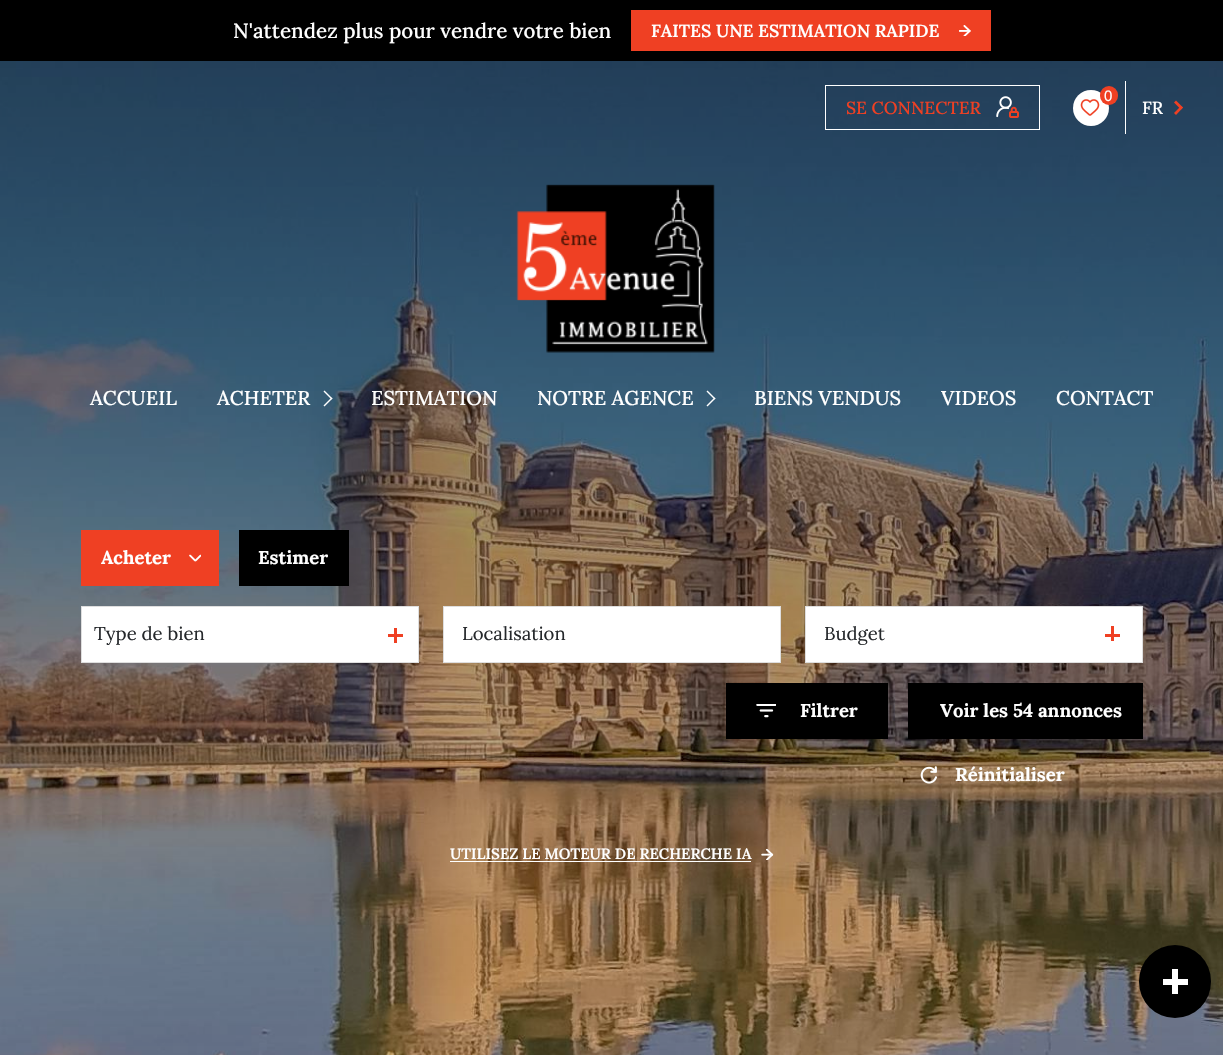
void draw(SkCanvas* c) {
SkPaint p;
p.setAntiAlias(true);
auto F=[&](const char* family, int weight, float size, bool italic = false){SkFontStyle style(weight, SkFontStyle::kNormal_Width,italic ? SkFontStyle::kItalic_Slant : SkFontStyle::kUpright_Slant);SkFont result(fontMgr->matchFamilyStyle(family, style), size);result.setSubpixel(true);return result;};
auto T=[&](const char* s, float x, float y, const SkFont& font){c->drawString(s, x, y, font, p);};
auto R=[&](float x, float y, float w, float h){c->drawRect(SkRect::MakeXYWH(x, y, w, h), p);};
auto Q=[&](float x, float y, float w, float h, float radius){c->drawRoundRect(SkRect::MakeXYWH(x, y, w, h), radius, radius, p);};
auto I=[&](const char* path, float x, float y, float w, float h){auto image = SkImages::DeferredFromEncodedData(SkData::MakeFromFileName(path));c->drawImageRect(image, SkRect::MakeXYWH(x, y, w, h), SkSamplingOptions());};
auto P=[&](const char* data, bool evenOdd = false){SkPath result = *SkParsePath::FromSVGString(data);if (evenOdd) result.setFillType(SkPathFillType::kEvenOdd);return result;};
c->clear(0xffffffff);
p.setColor(0xff000000);
R(0,0,1223,61);
auto f1 = F("Lora",500,20.6);
p.setColor(0xffffffff);
T("N'attendez plus pour vendre votre bien",233,38,f1);
p.setColor(0xffef4023);
R(631,10,360,41);
auto f2 = F("Lora",600,17.5);
p.setColor(0xffffffff);
T("FAITES UNE ESTIMATION RAPIDE",651,37,f2);
I("1.png",959,25,12,11);
I("2.png",0,61,1223,994);
c->drawCircle(1091,108,18,p);
I("3.png",1080,99,20,17);
p.setColor(0xffef4023);
Q(1100,86,18,19,9);
auto f3 = F("Liberation Sans",400,15);
p.setColor(0xffffffff);
T("0",1104,101,f3);
p.setStroke(true);
p.setStrokeWidth(1);
c->drawRect(SkRect::MakeXYWH(825.5,85.5,214,44),p);
auto f4 = F("Lora",500,17.5);
p.setStroke(false);
p.setColor(0xffef4023);
T("SE CONNECTER",846,114,f4);
I("4.png",996,96,23,22);
p.setColor(0xffffffff);
R(1125,81,1,53);
T("FR",1142,114,f4);
p.setColor(0xffef4023);
c->drawPath(P("M1174 102.5l2-2l7 7l-2 2z"),p);
c->drawPath(P("M1174 113l7-7l2 1.5l-7 7.5z"),p);
I("5.png",516,184,199,169);
auto f5 = F("Lora",500,20);
p.setColor(0xffffffff);
T("ACCUEIL",90,405,f5);
T("ACHETER",217,405,f5);
c->drawPath(P("M332.5 398.5l-8 8l-1-1l8-8z"),p);
c->drawPath(P("M332.5 398.5l-1 1l-8-8l1-1z"),p);
T("ESTIMATION",371,405,f5);
T("NOTRE AGENCE",537,405,f5);
c->drawPath(P("M715.5 398.5l-8 8l-1-1l8-8z"),p);
c->drawPath(P("M715.5 398.5l-1 1l-8-8l1-1z"),p);
T("BIENS VENDUS",754,405,f5);
T("VIDEOS",941,405,f5);
T("CONTACT",1056,405,f5);
p.setColor(0xffef4023);
R(81,530,138,56);
auto f6 = F("Lora",700,18.5);
p.setColor(0xffffffff);
T("Acheter",101,564,f6);
I("6.png",189,554,12,8);
p.setColor(0xff000000);
R(239,530,110,56);
p.setColor(0xffffffff);
T("Estimer",258,564,f6);
c->drawRect(SkRect::MakeXYWH(81.5,606.5,337,56),p);
p.setStroke(true);
p.setColor(0xffdedede);
c->drawRect(SkRect::MakeXYWH(81.5,606.5,337,56),p);
p.setStroke(false);
p.setColor(0xffef4023);
R(388,634,15,3);
R(394,628,3,15);
auto f7 = F("Lora",400,18.5);
p.setColor(0xff25282b);
T("Type de bien",94,640,f7);
p.setColor(0xffffffff);
c->drawRect(SkRect::MakeXYWH(443.5,606.5,337,56),p);
p.setStroke(true);
p.setColor(0xffdedede);
c->drawRect(SkRect::MakeXYWH(443.5,606.5,337,56),p);
p.setStroke(false);
p.setColor(0xff25282b);
T("Localisation",462,640,f7);
p.setColor(0xffffffff);
c->drawRect(SkRect::MakeXYWH(805.5,606.5,337,56),p);
p.setStroke(true);
p.setColor(0xffdedede);
c->drawRect(SkRect::MakeXYWH(805.5,606.5,337,56),p);
p.setStroke(false);
p.setColor(0xff25282b);
T("Budget",824,640,f7);
p.setColor(0xffef4023);
R(1111,626,3,15);
R(1105,634,15,3);
p.setColor(0xff000000);
R(726,683,162,56);
I("7.png",756,704,20,14);
p.setColor(0xffffffff);
T("Filtrer",800,717,f6);
p.setColor(0xff000000);
R(908,683,235,56);
p.setColor(0xffffffff);
T("Voir les 54 annonces",940,717,f6);
I("8.png",920,766,18,18);
T("Réinitialiser",955,781,f6);
auto f8 = F("Lora",600,15);
T("UTILISEZ LE MOTEUR DE RECHERCHE IA",450,859,f8);
R(450,861,301,1);
I("9.png",761,849,13,11);
p.setColor(0xff000000);
Q(1139,945,72,73,36);
p.setColor(0xffffffff);
R(1163,979,25,6);
R(1172,969,6,25);
}
